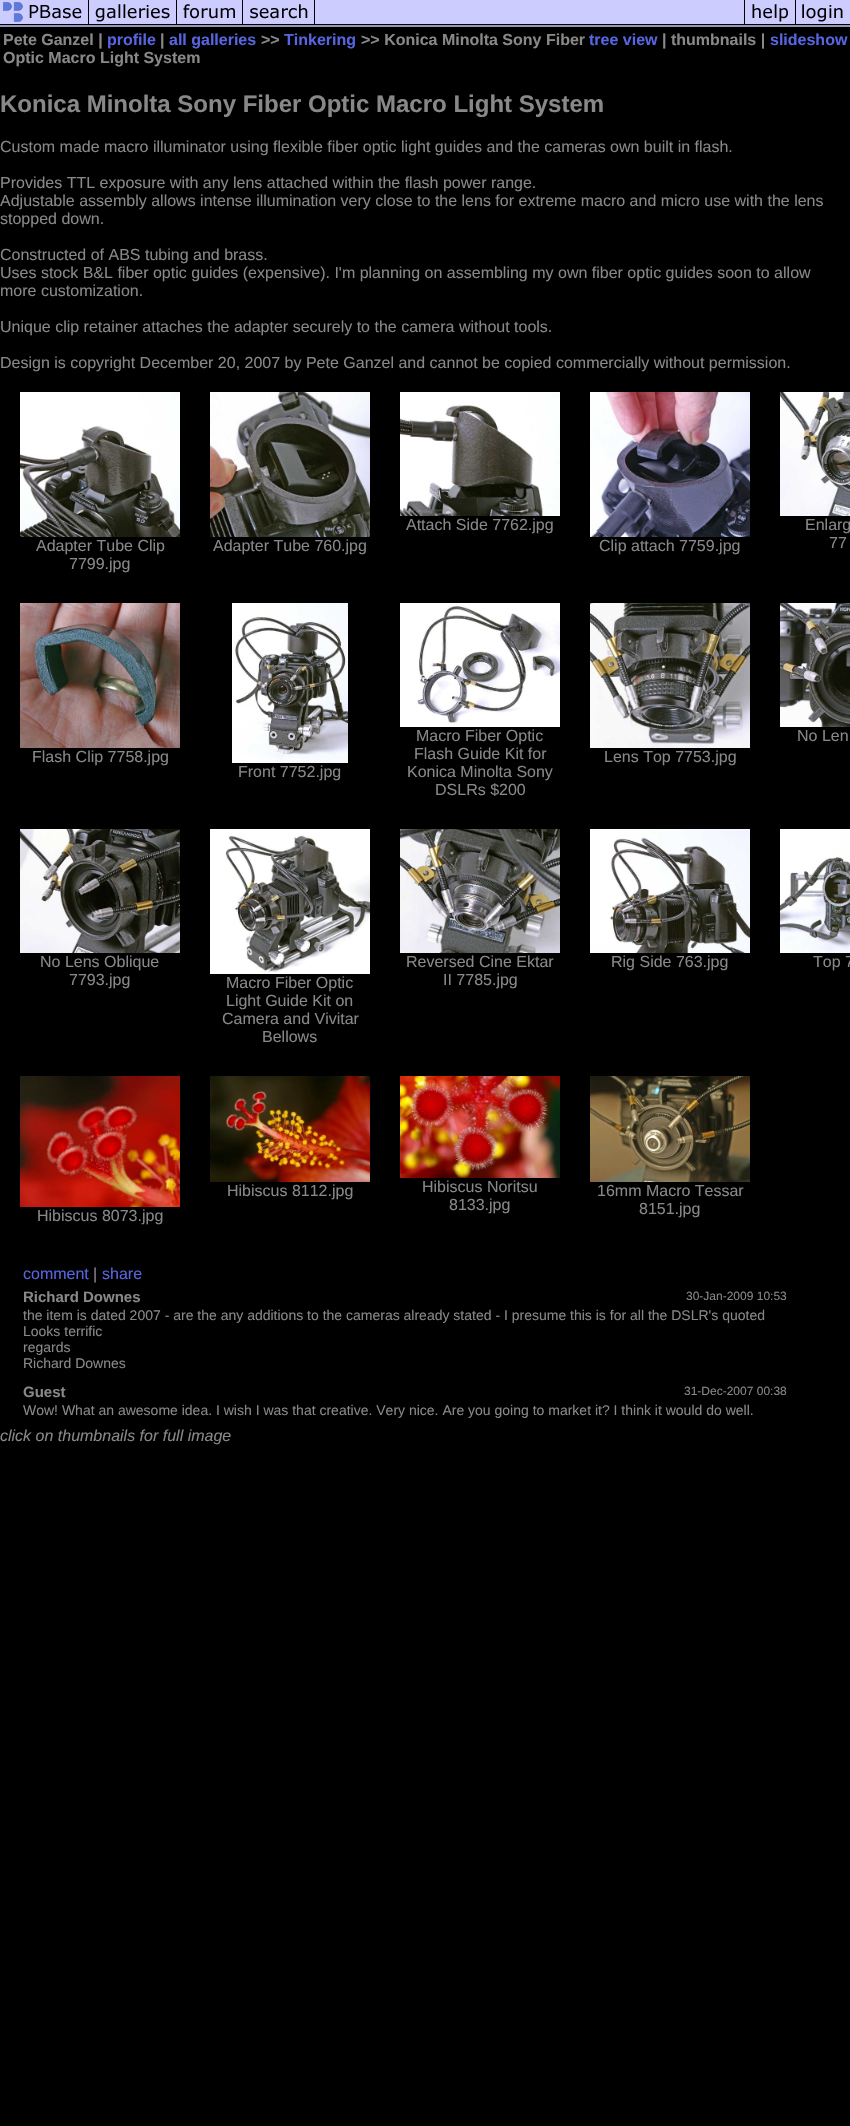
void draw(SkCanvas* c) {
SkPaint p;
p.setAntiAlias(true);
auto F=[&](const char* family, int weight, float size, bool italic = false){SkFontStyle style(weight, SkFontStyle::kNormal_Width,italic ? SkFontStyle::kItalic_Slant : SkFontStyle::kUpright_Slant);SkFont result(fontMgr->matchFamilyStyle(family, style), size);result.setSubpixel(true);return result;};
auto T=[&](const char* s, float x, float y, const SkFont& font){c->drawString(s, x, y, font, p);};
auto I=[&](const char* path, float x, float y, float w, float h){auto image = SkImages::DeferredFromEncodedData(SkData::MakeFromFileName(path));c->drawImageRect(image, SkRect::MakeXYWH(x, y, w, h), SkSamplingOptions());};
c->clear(0xff000000);
I("1.png",0,0,89,27);
I("2.png",89,0,88,27);
I("3.png",177,0,66,27);
I("4.png",243,0,72,27);
I("5.png",315,0,429,27);
I("6.png",744,0,52,27);
I("7.png",796,0,54,27);
auto f1 = F("Liberation Sans",700,16);
p.setColor(0xff888888);
T("Pete Ganzel |",3,45,f1);
p.setColor(0xff5865e1);
T("profile",107,45,f1);
p.setColor(0xff888888);
T("|",160,45,f1);
p.setColor(0xff5865e1);
T("all galleries",169,45,f1);
p.setColor(0xff888888);
T(">>",261,45,f1);
p.setColor(0xff5865e1);
T("Tinkering",284,45,f1);
p.setColor(0xff888888);
T(">> Konica Minolta Sony Fiber",361,45,f1);
T("Optic Macro Light System",3,63,f1);
p.setColor(0xff5865e1);
T("tree view",589,45,f1);
p.setColor(0xff888888);
T("| thumbnails |",662,45,f1);
p.setColor(0xff5865e1);
T("slideshow",770,45,f1);
auto f2 = F("Liberation Sans",700,24);
p.setColor(0xff888888);
T("Konica Minolta Sony Fiber Optic Macro Light System",0,112,f2);
auto f3 = F("Liberation Sans",400,16);
T("Custom made macro illuminator using flexible fiber optic light guides and the cameras own built in flash.",0,152,f3);
T("Provides TTL exposure with any lens attached within the flash power range.",0,188,f3);
T("Adjustable assembly allows intense illumination very close to the lens for extreme macro and micro use with the lens",0,206,f3);
T("stopped down.",0,224,f3);
T("Constructed of ABS tubing and brass.",0,260,f3);
T("Uses stock B&L fiber optic guides (expensive). I'm planning on assembling my own fiber optic guides soon to allow",0,278,f3);
T("more customization.",0,296,f3);
T("Unique clip retainer attaches the adapter securely to the camera without tools.",0,332,f3);
T("Design is copyright December 20, 2007 by Pete Ganzel and cannot be copied commercially without permission.",0,368,f3);
I("8.png",400,392,160,124);
T("Attach Side 7762.jpg",406,530,f3);
I("9.png",780,392,70,124);
T("Enlarg",805,530,f3);
T("77",829,548,f3);
I("10.png",20,392,160,145);
T("Adapter Tube Clip",36,551,f3);
T("7799.jpg",69,569,f3);
I("11.png",210,392,160,145);
T("Adapter Tube 760.jpg",213,551,f3);
I("12.png",590,392,160,145);
T("Clip attach 7759.jpg",599,551,f3);
I("13.png",400,603,160,124);
T("Macro Fiber Optic",416,741,f3);
T("Flash Guide Kit for",414,759,f3);
T("Konica Minolta Sony",407,777,f3);
T("DSLRs $200",435,795,f3);
I("14.png",780,603,70,124);
T("No Len",797,741,f3);
I("15.png",20,603,160,145);
T("Flash Clip 7758.jpg",32,762,f3);
I("16.png",590,603,160,145);
T("Lens Top 7753.jpg",604,762,f3);
I("17.png",232,603,116,160);
T("Front 7752.jpg",238,777,f3);
I("18.png",20,829,160,124);
T("No Lens Oblique",40,967,f3);
T("7793.jpg",69,985,f3);
I("19.png",400,829,160,124);
T("Reversed Cine Ektar",406,967,f3);
T("II 7785.jpg",443,985,f3);
I("20.png",590,829,160,124);
T("Rig Side 763.jpg",611,967,f3);
I("21.png",780,829,70,124);
T("Top 7",813,967,f3);
I("22.png",210,829,160,145);
T("Macro Fiber Optic",226,988,f3);
T("Light Guide Kit on",226,1006,f3);
T("Camera and Vivitar",222,1024,f3);
T("Bellows",262,1042,f3);
I("23.png",20,1076,160,131);
T("Hibiscus 8073.jpg",37,1221,f3);
I("24.png",210,1076,160,106);
T("Hibiscus 8112.jpg",227,1196,f3);
I("25.png",400,1076,160,102);
T("Hibiscus Noritsu",422,1192,f3);
T("8133.jpg",449,1210,f3);
I("26.png",590,1076,160,106);
T("16mm Macro Tessar",597,1196,f3);
T("8151.jpg",639,1214,f3);
p.setColor(0xff5865e1);
T("comment",23,1279,f3);
p.setColor(0xff888888);
T("|",93,1279,f3);
p.setColor(0xff5865e1);
T("share",102,1279,f3);
auto f4 = F("Liberation Sans",700,15);
p.setColor(0xff888888);
T("Richard Downes",23,1302,f4);
auto f5 = F("Liberation Sans",400,12);
T("30-Jan-2009 10:53",686,1300,f5);
auto f6 = F("Liberation Sans",400,14);
T("the item is dated 2007 - are the any additions to the cameras already stated - I presume this is for all the DSLR's quoted",23,1320,f6);
T("Looks terrific",23,1336,f6);
T("regards",23,1352,f6);
T("Richard Downes",23,1368,f6);
T("Guest",23,1397,f4);
T("31-Dec-2007 00:38",684,1395,f5);
T("Wow! What an awesome idea. I wish I was that creative. Very nice. Are you going to market it? I think it would do well.",23,1415,f6);
auto f7 = F("Liberation Sans",400,16,true);
T("click on thumbnails for full image",0,1441,f7);
}
